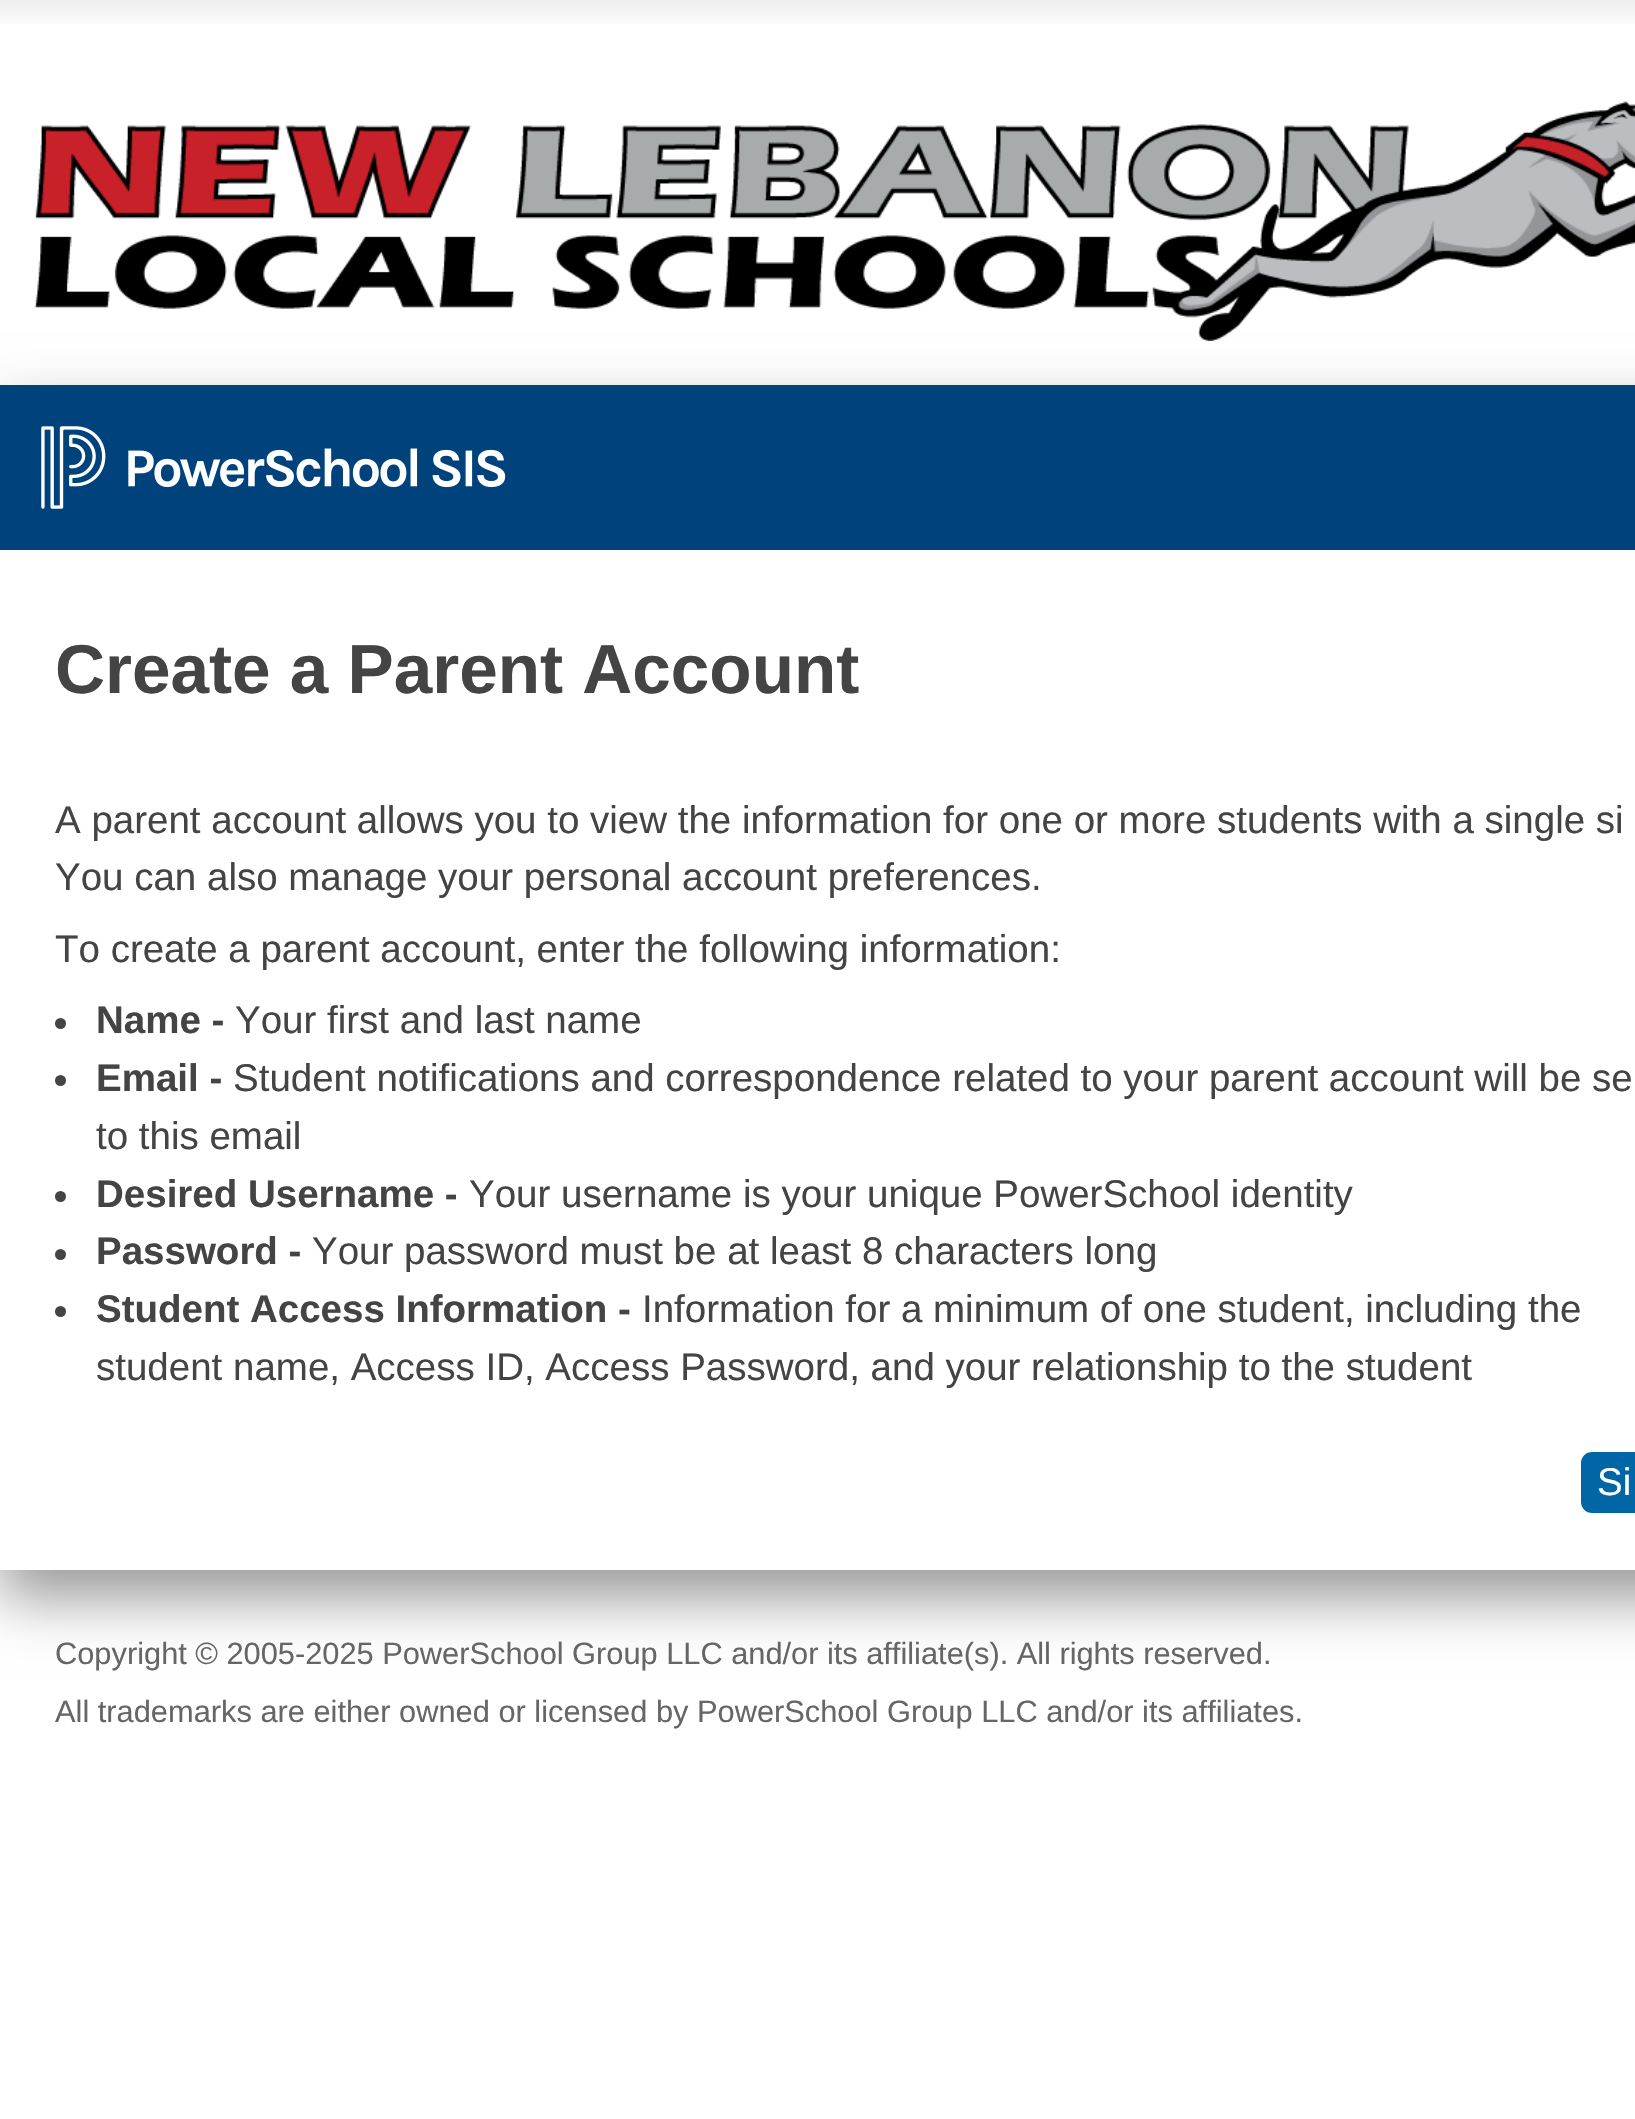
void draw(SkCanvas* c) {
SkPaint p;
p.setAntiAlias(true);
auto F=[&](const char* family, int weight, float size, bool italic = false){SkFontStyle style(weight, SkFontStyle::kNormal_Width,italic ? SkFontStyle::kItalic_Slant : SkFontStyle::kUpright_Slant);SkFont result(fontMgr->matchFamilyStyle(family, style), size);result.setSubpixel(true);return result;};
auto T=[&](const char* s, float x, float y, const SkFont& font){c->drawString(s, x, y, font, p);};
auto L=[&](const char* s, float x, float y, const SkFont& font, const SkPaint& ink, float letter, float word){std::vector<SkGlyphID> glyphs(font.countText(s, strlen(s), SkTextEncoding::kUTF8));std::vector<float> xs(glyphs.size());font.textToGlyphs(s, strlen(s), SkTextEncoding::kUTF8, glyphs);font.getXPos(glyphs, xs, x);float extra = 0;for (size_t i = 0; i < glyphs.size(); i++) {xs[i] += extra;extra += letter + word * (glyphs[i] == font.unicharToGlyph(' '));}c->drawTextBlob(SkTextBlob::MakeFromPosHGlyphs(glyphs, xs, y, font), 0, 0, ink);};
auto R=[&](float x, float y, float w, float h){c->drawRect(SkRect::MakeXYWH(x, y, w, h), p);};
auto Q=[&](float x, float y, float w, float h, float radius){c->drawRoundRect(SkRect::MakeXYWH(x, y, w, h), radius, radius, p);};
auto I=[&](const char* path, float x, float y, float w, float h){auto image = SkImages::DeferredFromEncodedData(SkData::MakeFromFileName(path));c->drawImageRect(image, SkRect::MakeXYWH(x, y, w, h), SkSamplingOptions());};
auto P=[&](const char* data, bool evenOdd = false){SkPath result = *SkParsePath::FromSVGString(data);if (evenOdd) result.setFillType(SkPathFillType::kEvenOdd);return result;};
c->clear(0xffffffff);
{
const SkColor colors[] = {0xffededed,0xffffffff};
const float stops[] = {0,1};
const SkPoint ends[] = {{0,0}, {0,28}};
p.setShader(SkGradientShader::MakeLinear(ends, colors, stops, 2, SkTileMode::kClamp));
p.setAlpha(255);
}
R(0,0,1635,24);
I("1.png",34,101,1601,240);
c->save();
c->clipPath(P("M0 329h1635v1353h-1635zm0 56h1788v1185h-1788z",true),true);
p.setShader(nullptr);
p.setColor(0x66000000);
p.setMaskFilter(SkMaskFilter::MakeBlur(kNormal_SkBlurStyle, 27.5));
c->drawRect(SkRect::MakeXYWH(0,413,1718,1185),p);
p.setMaskFilter(nullptr);
c->restore();
p.setColor(0xff00427c);
R(0,385,1635,165);
I("2.png",41,426,465,83);
auto f1 = F("Liberation Sans",700,69.25);
p.setColor(0xff444444);
T("Create a Parent Account",55,693,f1);
auto f2 = F("Liberation Sans",400,38.5);
T("A parent account allows you to view the information for one or more students with a single si",55,833,f2);
T("You can also manage your personal account preferences.",55,890,f2);
T("To create a parent account, enter the following information:",55,962,f2);
c->drawCircle(60.5,1023.5,5.5,p);
auto f3 = F("Liberation Sans",700,38.5);
T("Name -",96,1033,f3);
T("Your first and last name",235,1033,f2);
c->drawCircle(60.5,1080.5,5.5,p);
T("Email -",96,1091,f3);
T("Student notifications and correspondence related to your parent account will be se",233,1091,f2);
T("to this email",96,1149,f2);
c->drawCircle(60.5,1196.5,5.5,p);
T("Desired Username -",96,1207,f3);
T("Your username is your unique PowerSchool identity",469,1207,f2);
c->drawCircle(60.5,1254.5,5.5,p);
T("Password -",96,1264,f3);
T("Your password must be at least 8 characters long",312,1264,f2);
c->drawCircle(60.5,1311.5,5.5,p);
T("Student Access Information -",96,1322,f3);
T("Information for a minimum of one student, including the",642,1322,f2);
T("student name, Access ID, Access Password, and your relationship to the student",96,1380,f2);
p.setColor(0xff0066a5);
Q(1581,1452,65,61,11);
p.setColor(0xffffffff);
T("Si",1597,1495,f2);
auto f4 = F("Liberation Sans",400,30.8);
p.setColor(0xff666666);
L("Copyright © 2005-2025 PowerSchool Group LLC and/or its affiliate(s). All rights reserved.",55,1664,f4,p,0,-.1);
T("All trademarks are either owned or licensed by PowerSchool Group LLC and/or its affiliates.",55,1722,f4);
}
